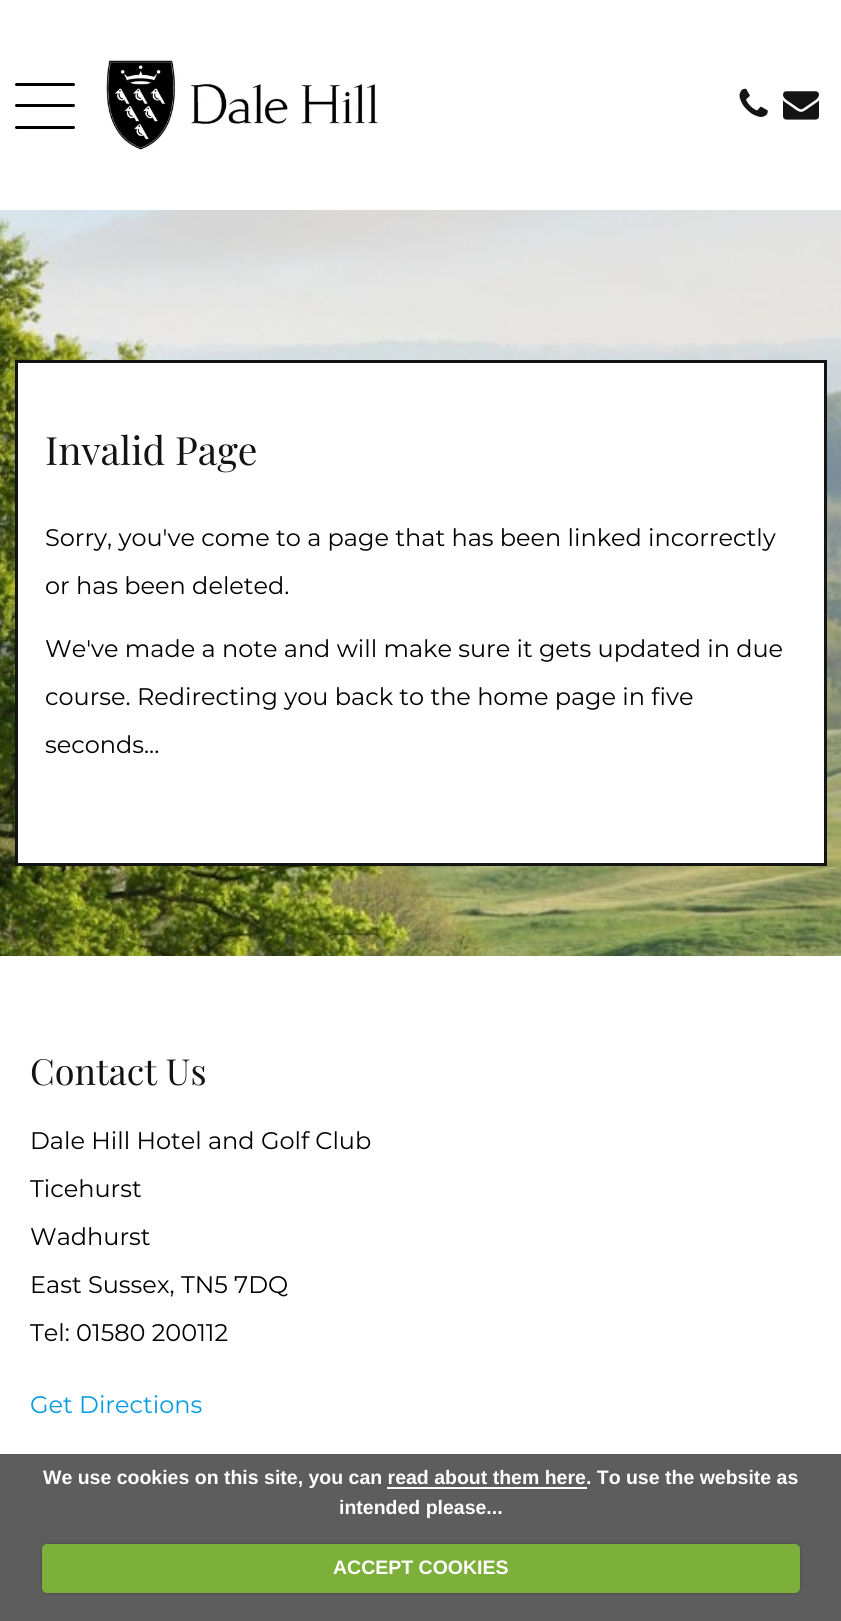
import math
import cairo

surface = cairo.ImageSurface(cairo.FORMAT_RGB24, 841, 1621)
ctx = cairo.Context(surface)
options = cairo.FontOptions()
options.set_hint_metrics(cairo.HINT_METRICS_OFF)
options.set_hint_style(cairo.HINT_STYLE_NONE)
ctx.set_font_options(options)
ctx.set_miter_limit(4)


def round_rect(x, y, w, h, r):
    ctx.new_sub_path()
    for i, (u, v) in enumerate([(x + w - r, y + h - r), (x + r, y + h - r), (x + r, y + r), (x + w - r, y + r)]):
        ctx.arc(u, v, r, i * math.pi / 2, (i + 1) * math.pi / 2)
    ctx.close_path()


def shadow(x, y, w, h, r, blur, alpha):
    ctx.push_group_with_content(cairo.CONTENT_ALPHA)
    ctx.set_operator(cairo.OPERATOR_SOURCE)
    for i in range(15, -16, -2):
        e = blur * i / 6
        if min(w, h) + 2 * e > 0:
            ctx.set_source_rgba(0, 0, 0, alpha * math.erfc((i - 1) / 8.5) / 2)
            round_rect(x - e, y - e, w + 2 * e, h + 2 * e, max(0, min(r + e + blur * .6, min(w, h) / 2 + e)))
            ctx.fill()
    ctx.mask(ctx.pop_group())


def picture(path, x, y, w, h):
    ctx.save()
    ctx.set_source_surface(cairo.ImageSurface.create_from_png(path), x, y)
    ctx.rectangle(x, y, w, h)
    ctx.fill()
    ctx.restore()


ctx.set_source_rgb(1, 1, 1)
ctx.paint()
picture("img1.png", 0, 210, 841, 746)
ctx.set_source_rgb(0, 0, 0)
round_rect(15, 83, 60, 3, 1.5)
ctx.fill()
round_rect(15, 104, 60, 3, 1.5)
ctx.fill()
round_rect(15, 126, 60, 3, 1.5)
ctx.fill()
picture("img2.png", 105, 60, 273, 90)
picture("img3.png", 739, 88, 29, 29)
picture("img4.png", 783, 91, 36, 29)
ctx.set_source_rgb(1, 1, 1)
ctx.rectangle(16.5, 361.5, 809, 503)
ctx.fill_preserve()
ctx.set_source_rgb(0.078, 0.078, 0.078)
ctx.set_line_width(3)
ctx.stroke()
ctx.select_font_face("Playfair Display")
ctx.set_font_size(39)
ctx.move_to(45, 465)
ctx.show_text("Invalid Page")
ctx.select_font_face("Montserrat")
ctx.set_font_size(24)
ctx.set_source_rgb(0, 0, 0)
ctx.move_to(45, 546)
ctx.show_text("Sorry, you've come to a page that has been linked incorrectly")
ctx.move_to(45, 594)
ctx.show_text("or has been deleted.")
ctx.move_to(45, 657)
ctx.show_text("We've made a note and will make sure it gets updated in due")
ctx.move_to(45, 705)
ctx.show_text("course. Redirecting you back to the home page in five")
ctx.move_to(45, 753)
ctx.show_text("seconds...")
ctx.select_font_face("Playfair Display")
ctx.set_font_size(36)
ctx.set_source_rgb(0.078, 0.078, 0.078)
ctx.move_to(30, 1085)
ctx.show_text("Contact Us")
ctx.select_font_face("Montserrat")
ctx.set_font_size(24)
ctx.set_source_rgb(0, 0, 0)
ctx.move_to(30, 1149)
ctx.show_text("Dale Hill Hotel and Golf Club")
ctx.move_to(30, 1197)
ctx.show_text("Ticehurst")
ctx.move_to(30, 1245)
ctx.show_text("Wadhurst")
ctx.move_to(30, 1293)
ctx.show_text("East Sussex, TN5 7DQ")
ctx.move_to(30, 1341)
ctx.show_text("Tel: 01580 200112")
ctx.set_source_rgb(0.012, 0.608, 0.898)
ctx.move_to(30, 1413)
ctx.show_text("Get Directions")
ctx.set_source_rgba(0.337, 0.337, 0.337, 0.95)
ctx.rectangle(0, 1454, 841, 167)
ctx.fill()
ctx.select_font_face("Liberation Sans", cairo.FONT_SLANT_NORMAL, cairo.FONT_WEIGHT_BOLD)
ctx.set_font_size(19.5)
ctx.set_source_rgb(1, 1, 1)
ctx.move_to(43, 1484)
ctx.show_text("We use cookies on this site, you can read about them here. To use the website as")
ctx.rectangle(387, 1487, 200, 2)
ctx.fill()
ctx.move_to(339, 1514)
ctx.show_text("intended please...")
ctx.set_source_rgb(0, 0, 0)
shadow(42, 1544, 758, 49, 5, 1.5, 0.25)
ctx.set_source_rgb(0.49, 0.686, 0.231)
round_rect(42, 1544, 758, 49, 5)
ctx.fill()
ctx.set_source_rgb(1, 1, 1)
ctx.move_to(333, 1574)
ctx.show_text("ACCEPT COOKIES")
surface.write_to_png("page.png")
